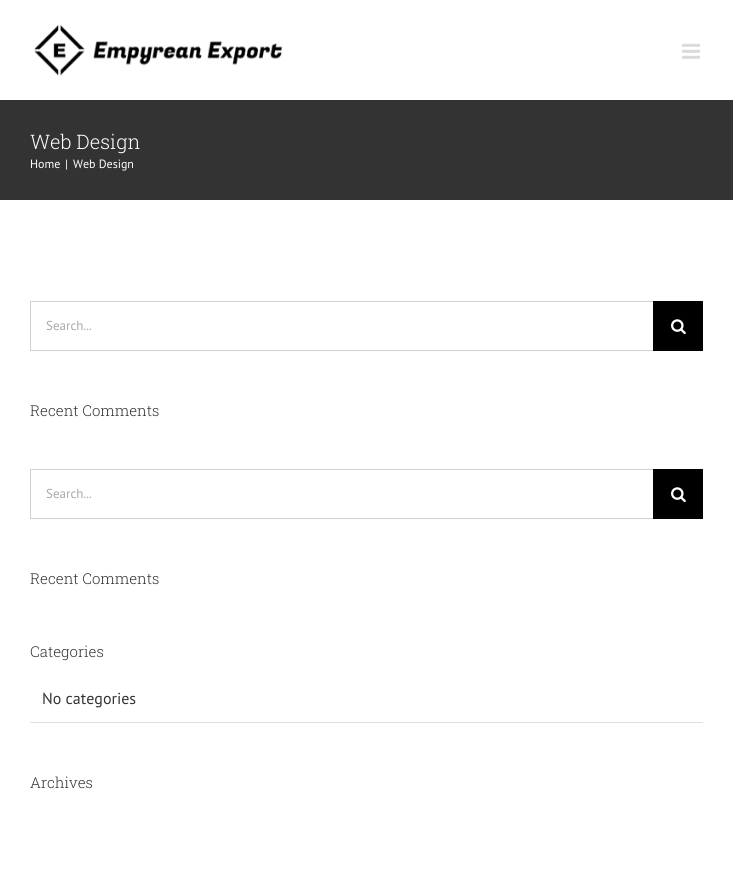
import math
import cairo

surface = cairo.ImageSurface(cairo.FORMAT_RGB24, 733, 880)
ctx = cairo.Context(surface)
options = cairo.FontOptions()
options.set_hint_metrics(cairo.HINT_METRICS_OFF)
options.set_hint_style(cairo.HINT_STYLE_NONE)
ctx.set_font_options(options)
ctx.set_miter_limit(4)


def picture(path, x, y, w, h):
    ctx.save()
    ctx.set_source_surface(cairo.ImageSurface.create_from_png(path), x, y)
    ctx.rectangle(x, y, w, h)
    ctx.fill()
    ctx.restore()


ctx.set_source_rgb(1, 1, 1)
ctx.paint()
picture("img1.png", 34, 25, 249, 51)
picture("img2.png", 682, 43, 18, 16)
ctx.set_source_rgb(0.2, 0.2, 0.2)
ctx.rectangle(0, 100, 733, 100)
ctx.fill()
ctx.select_font_face("Roboto Slab Light")
ctx.set_font_size(20)
ctx.set_source_rgb(1, 1, 1)
ctx.move_to(30, 149)
ctx.show_text("Web Design")
ctx.select_font_face("PT Sans")
ctx.set_font_size(12)
ctx.move_to(30, 168)
ctx.show_text("Home")
ctx.move_to(65, 168)
ctx.show_text("|")
ctx.move_to(73, 168)
ctx.show_text("Web Design")
ctx.set_source_rgb(0.824, 0.824, 0.824)
ctx.rectangle(30, 301, 623, 1)
ctx.fill()
ctx.rectangle(30, 350, 623, 1)
ctx.fill()
ctx.rectangle(30, 301, 1, 50)
ctx.fill()
ctx.set_font_size(13)
ctx.set_source_rgb(0.667, 0.663, 0.663)
ctx.move_to(46, 330)
ctx.show_text("Search...")
ctx.set_source_rgb(0, 0, 0)
ctx.rectangle(653, 301, 50, 50)
ctx.fill()
picture("img3.png", 671, 319, 15, 16)
ctx.select_font_face("Roboto Slab Light")
ctx.set_font_size(15)
ctx.set_source_rgb(0.2, 0.2, 0.2)
ctx.move_to(30, 416)
ctx.show_text("Recent Comments")
ctx.set_source_rgb(0.824, 0.824, 0.824)
ctx.rectangle(30, 469, 623, 1)
ctx.fill()
ctx.rectangle(30, 518, 623, 1)
ctx.fill()
ctx.rectangle(30, 469, 1, 50)
ctx.fill()
ctx.select_font_face("PT Sans")
ctx.set_font_size(13)
ctx.set_source_rgb(0.667, 0.663, 0.663)
ctx.move_to(46, 498)
ctx.show_text("Search...")
ctx.set_source_rgb(0, 0, 0)
ctx.rectangle(653, 469, 50, 50)
ctx.fill()
picture("img3.png", 671, 487, 15, 16)
ctx.select_font_face("Roboto Slab Light")
ctx.set_font_size(15)
ctx.set_source_rgb(0.2, 0.2, 0.2)
ctx.move_to(30, 584)
ctx.show_text("Recent Comments")
ctx.move_to(30, 657)
ctx.show_text("Categories")
ctx.set_source_rgb(0.878, 0.871, 0.871)
ctx.rectangle(30, 722, 673, 1)
ctx.fill()
ctx.select_font_face("PT Sans")
ctx.set_font_size(16)
ctx.set_source_rgb(0.2, 0.2, 0.2)
ctx.move_to(42, 704)
ctx.show_text("No categories")
ctx.select_font_face("Roboto Slab Light")
ctx.set_font_size(15)
ctx.move_to(30, 788)
ctx.show_text("Archives")
surface.write_to_png("page.png")
